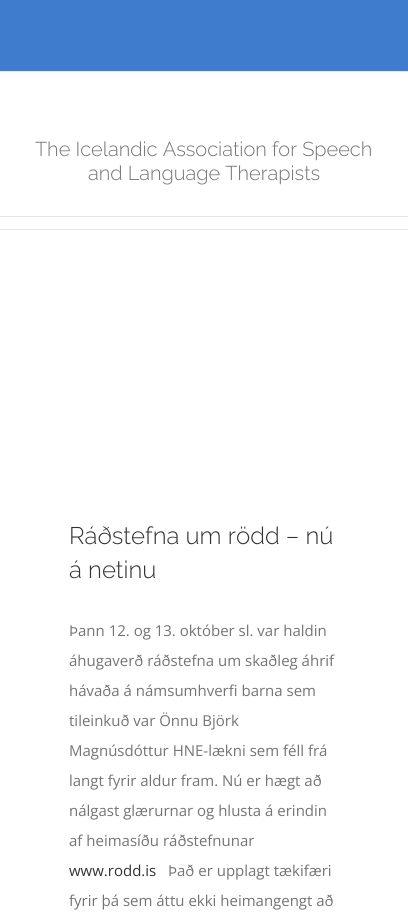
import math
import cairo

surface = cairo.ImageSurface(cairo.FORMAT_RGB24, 408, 917)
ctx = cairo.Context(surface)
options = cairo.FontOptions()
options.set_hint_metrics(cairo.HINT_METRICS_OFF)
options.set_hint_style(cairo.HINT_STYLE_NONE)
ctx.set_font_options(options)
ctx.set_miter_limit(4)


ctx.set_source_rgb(1, 1, 1)
ctx.paint()
ctx.set_source_rgb(0.247, 0.486, 0.804)
ctx.rectangle(0, 0, 408, 71)
ctx.fill()
ctx.set_source_rgb(0.898, 0.898, 0.898)
ctx.rectangle(0, 71, 408, 1)
ctx.fill()
ctx.rectangle(0, 216, 408, 1)
ctx.fill()
ctx.select_font_face("Raleway Light")
ctx.set_font_size(20)
ctx.set_source_rgb(0.455, 0.455, 0.455)
ctx.move_to(35, 156)
ctx.show_text("The Icelandic Association for Speech")
ctx.move_to(88, 180)
ctx.show_text("and Language Therapists")
ctx.set_source_rgb(0.898, 0.898, 0.898)
ctx.rectangle(0, 229, 408, 1)
ctx.fill()
ctx.set_font_size(24)
ctx.set_source_rgb(0.2, 0.2, 0.2)
ctx.move_to(69, 544)
ctx.show_text("Ráðstefna um rödd – nú")
ctx.move_to(69, 578)
ctx.show_text("á netinu")
ctx.select_font_face("Open Sans")
ctx.set_font_size(15)
ctx.set_source_rgb(0.455, 0.455, 0.455)
ctx.move_to(69, 636)
ctx.show_text("Þann 12. og 13. október sl. var haldin")
ctx.move_to(69, 666)
ctx.show_text("áhugaverð ráðstefna um skaðleg áhrif")
ctx.move_to(69, 696)
ctx.show_text("hávaða á námsumhverfi barna sem")
ctx.move_to(69, 726)
ctx.show_text("tileinkuð var Önnu Björk")
ctx.move_to(69, 756)
ctx.show_text("Magnúsdóttur HNE-lækni sem féll frá")
ctx.move_to(69, 786)
ctx.show_text("langt fyrir aldur fram. Nú er hægt að")
ctx.move_to(69, 816)
ctx.show_text("nálgast glærurnar og hlusta á erindin")
ctx.move_to(69, 846)
ctx.show_text("af heimasíðu ráðstefnunar")
ctx.set_source_rgb(0.2, 0.2, 0.2)
ctx.move_to(69, 876)
ctx.show_text("www.rodd.is")
ctx.set_source_rgb(0.455, 0.455, 0.455)
ctx.move_to(168, 876)
ctx.show_text("Það er upplagt tækifæri")
ctx.move_to(69, 906)
ctx.show_text("fyrir þá sem áttu ekki heimangengt að")
surface.write_to_png("page.png")
